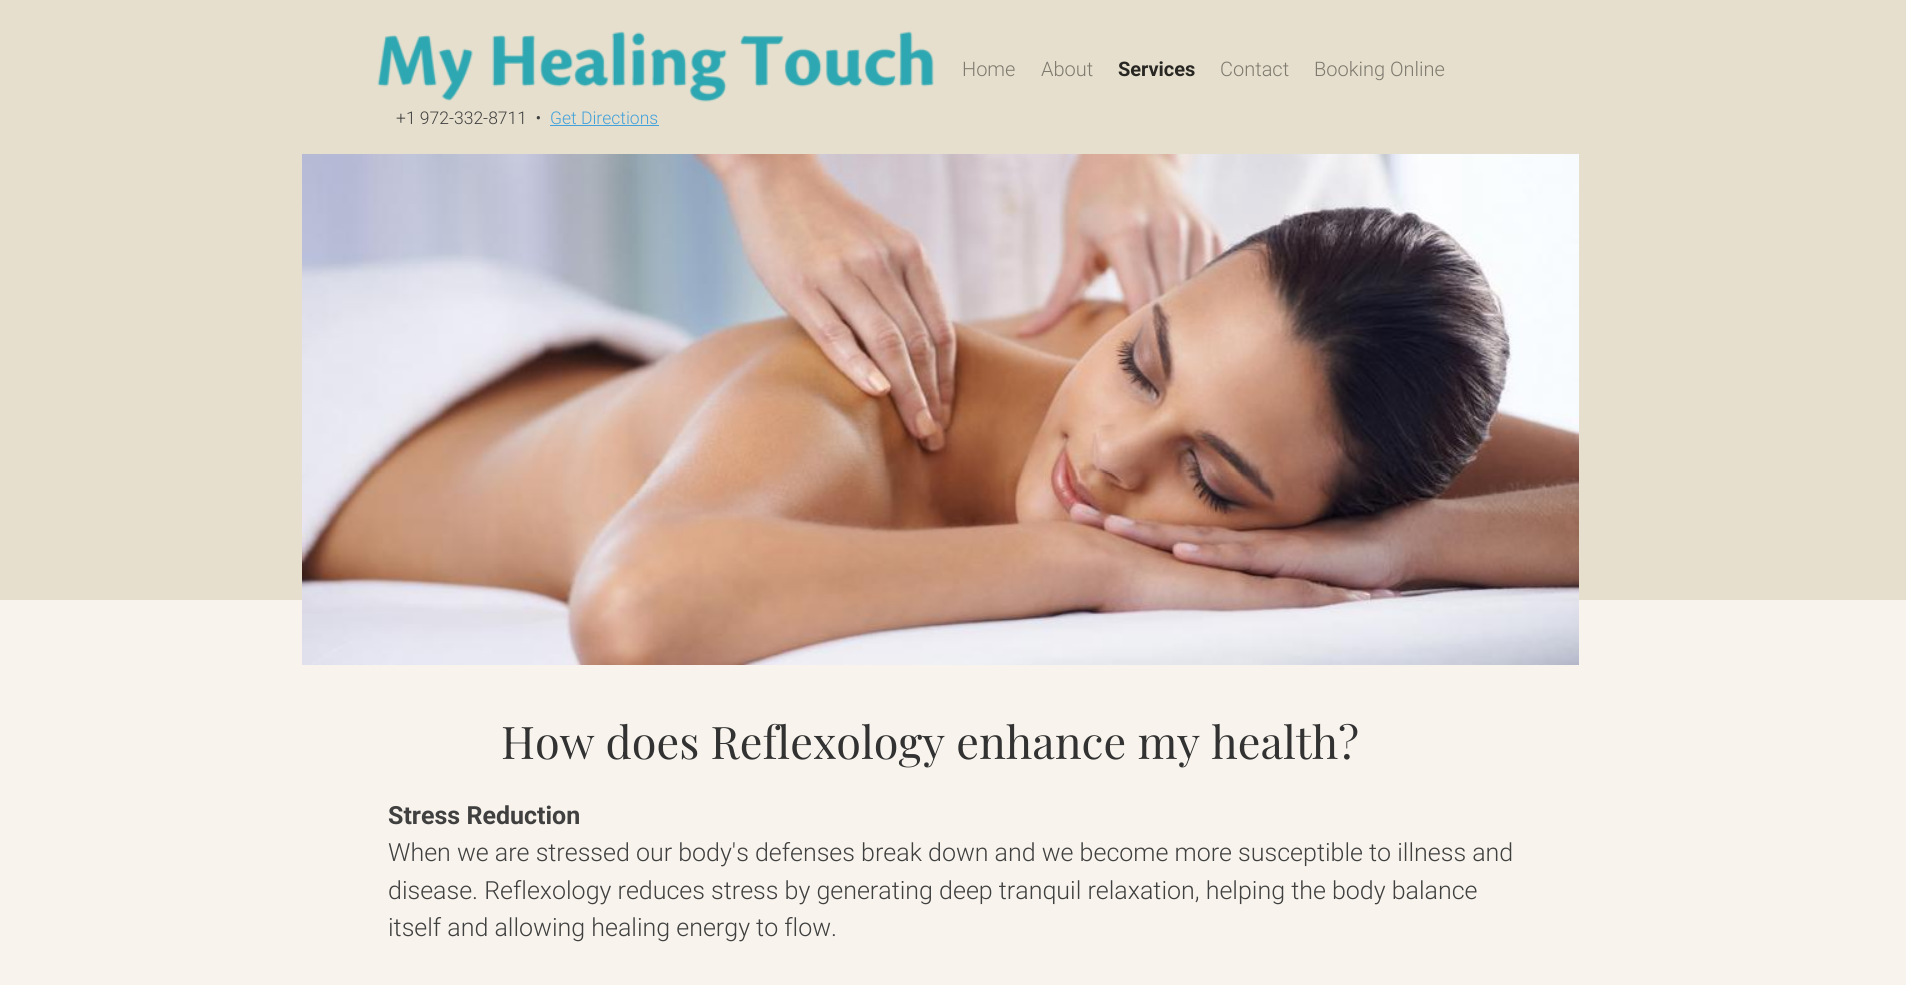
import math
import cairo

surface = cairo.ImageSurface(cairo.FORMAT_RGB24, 1906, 985)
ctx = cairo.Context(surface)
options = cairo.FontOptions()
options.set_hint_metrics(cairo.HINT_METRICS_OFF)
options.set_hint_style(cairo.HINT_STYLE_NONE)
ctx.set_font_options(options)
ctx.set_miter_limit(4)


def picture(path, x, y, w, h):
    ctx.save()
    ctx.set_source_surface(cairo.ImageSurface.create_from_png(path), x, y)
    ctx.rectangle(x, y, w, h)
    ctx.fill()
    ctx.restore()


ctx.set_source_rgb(0.969, 0.957, 0.929)
ctx.paint()
ctx.set_source_rgb(0.902, 0.875, 0.804)
ctx.rectangle(0, 0, 1906, 600)
ctx.fill()
picture("img1.png", 377, 31, 557, 71)
ctx.select_font_face("Roboto Light")
ctx.set_font_size(20)
ctx.set_source_rgb(0.494, 0.478, 0.435)
ctx.move_to(962, 76)
ctx.show_text("Home")
ctx.move_to(1041, 76)
ctx.show_text("About")
ctx.select_font_face("Roboto", cairo.FONT_SLANT_NORMAL, cairo.FONT_WEIGHT_BOLD)
ctx.set_source_rgb(0.161, 0.153, 0.137)
ctx.move_to(1118, 76)
ctx.show_text("Services")
ctx.select_font_face("Roboto Light")
ctx.set_source_rgb(0.494, 0.478, 0.435)
ctx.move_to(1220, 76)
ctx.show_text("Contact")
ctx.move_to(1314, 76)
ctx.show_text("Booking Online")
ctx.set_font_size(17.5)
ctx.set_source_rgb(0.251, 0.251, 0.251)
ctx.move_to(396, 124)
ctx.show_text("+1 972-332-8711  •")
ctx.set_source_rgb(0.263, 0.631, 0.855)
ctx.move_to(550, 124)
ctx.show_text("Get Directions")
ctx.rectangle(550, 125, 109, 1)
ctx.fill()
picture("img2.png", 302, 154, 1277, 511)
ctx.select_font_face("Playfair Display")
ctx.set_font_size(45)
ctx.set_source_rgb(0.196, 0.196, 0.196)
ctx.move_to(501, 759)
ctx.show_text("How does Reflexology enhance my health?")
ctx.select_font_face("Roboto", cairo.FONT_SLANT_NORMAL, cairo.FONT_WEIGHT_BOLD)
ctx.set_font_size(25)
ctx.set_source_rgb(0.251, 0.251, 0.251)
ctx.move_to(388, 824)
ctx.show_text("Stress Reduction")
ctx.select_font_face("Roboto Light")
ctx.move_to(388, 861)
ctx.show_text("When we are stressed our body's defenses break down and we become more susceptible to illness and")
ctx.move_to(388, 899)
ctx.show_text("disease. Reflexology reduces stress by generating deep tranquil relaxation, helping the body balance")
ctx.move_to(388, 936)
ctx.show_text("itself and allowing healing energy to flow.")
surface.write_to_png("page.png")
